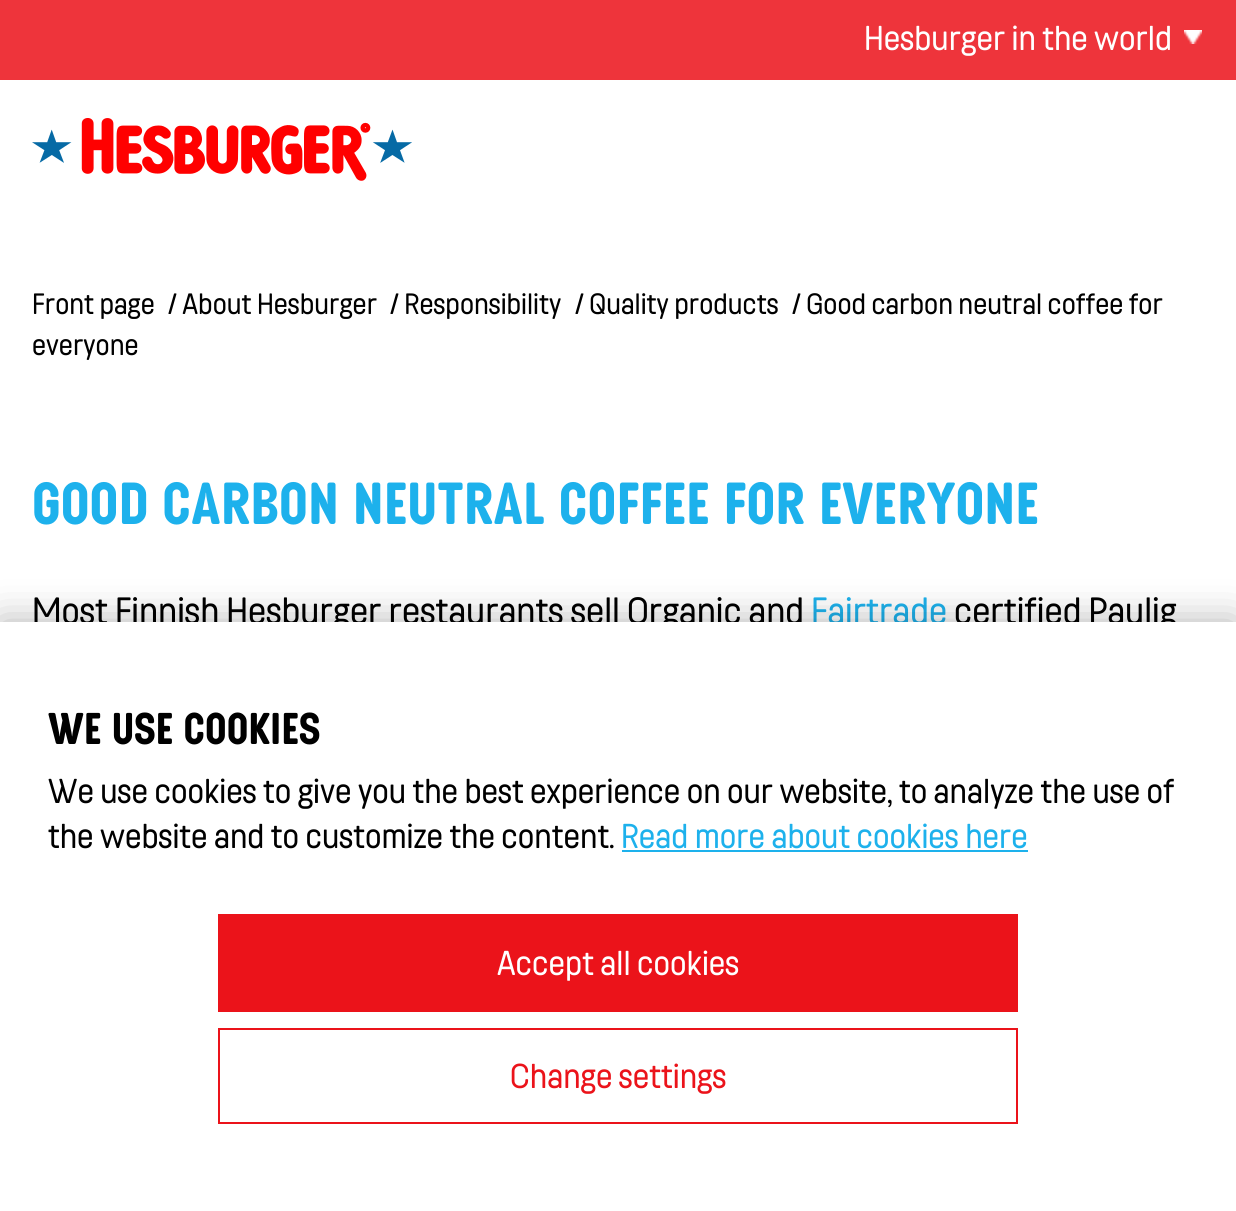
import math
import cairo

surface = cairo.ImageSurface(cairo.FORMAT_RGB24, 1236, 1211)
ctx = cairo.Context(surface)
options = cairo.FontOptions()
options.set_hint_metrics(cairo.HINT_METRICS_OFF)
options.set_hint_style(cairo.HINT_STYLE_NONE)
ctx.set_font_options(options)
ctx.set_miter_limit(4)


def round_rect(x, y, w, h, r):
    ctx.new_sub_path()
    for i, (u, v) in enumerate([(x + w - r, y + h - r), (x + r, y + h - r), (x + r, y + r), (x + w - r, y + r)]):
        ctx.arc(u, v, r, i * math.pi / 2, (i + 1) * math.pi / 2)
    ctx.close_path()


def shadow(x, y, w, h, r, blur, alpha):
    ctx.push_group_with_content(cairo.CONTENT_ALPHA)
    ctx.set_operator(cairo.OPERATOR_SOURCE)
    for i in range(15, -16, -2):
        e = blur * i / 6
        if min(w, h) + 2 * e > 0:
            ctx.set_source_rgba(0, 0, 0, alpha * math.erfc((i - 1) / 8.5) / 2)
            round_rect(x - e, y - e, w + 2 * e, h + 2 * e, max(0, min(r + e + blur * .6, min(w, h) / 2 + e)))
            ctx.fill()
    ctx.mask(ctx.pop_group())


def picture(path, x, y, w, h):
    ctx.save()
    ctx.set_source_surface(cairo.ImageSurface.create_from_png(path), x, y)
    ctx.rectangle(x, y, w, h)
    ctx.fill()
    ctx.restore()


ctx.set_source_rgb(1, 1, 1)
ctx.paint()
ctx.set_source_rgb(0.933, 0.204, 0.231)
ctx.rectangle(0, 0, 1236, 80)
ctx.fill()
ctx.select_font_face("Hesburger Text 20")
ctx.set_font_size(32)
ctx.set_source_rgb(1, 1, 1)
ctx.move_to(864, 50)
ctx.show_text("Hesburger in the world")
picture("img1.png", 1184, 30, 18, 14)
picture("img2.png", 32, 118, 380, 63)
ctx.set_font_size(27.25)
ctx.set_source_rgb(0, 0, 0)
ctx.move_to(32, 314)
ctx.show_text("Front page")
ctx.move_to(168, 314)
ctx.show_text("/ About Hesburger")
ctx.move_to(390, 314)
ctx.show_text("/ Responsibility")
ctx.move_to(575, 314)
ctx.show_text("/ Quality products")
ctx.move_to(792, 314)
ctx.show_text("/ Good carbon neutral coffee for")
ctx.move_to(32, 355)
ctx.show_text("everyone")
ctx.select_font_face("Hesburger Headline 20 Black")
ctx.set_font_size(64)
ctx.set_source_rgb(0.114, 0.694, 0.925)
ctx.move_to(32, 524)
ctx.show_text("GOOD CARBON NEUTRAL COFFEE FOR EVERYONE")
ctx.select_font_face("Hesburger Text 20")
ctx.set_font_size(35.2)
ctx.set_source_rgb(0, 0, 0)
ctx.move_to(32, 624)
ctx.show_text("Most Finnish Hesburger restaurants sell Organic and")
ctx.set_source_rgb(0.114, 0.694, 0.925)
ctx.move_to(811, 624)
ctx.show_text("Fairtrade")
ctx.set_source_rgb(0, 0, 0)
ctx.move_to(954, 624)
ctx.show_text("certified Paulig")
ctx.set_source_rgb(0, 0, 0)
shadow(0, 622, 1236, 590, 0, 20, 0.3)
ctx.set_source_rgb(1, 1, 1)
ctx.rectangle(0, 622, 1236, 589)
ctx.fill()
ctx.select_font_face("Hesburger Headline 20 Black")
ctx.set_font_size(48)
ctx.set_source_rgb(0, 0, 0)
ctx.move_to(48, 744)
ctx.show_text("WE USE COOKIES")
ctx.select_font_face("Hesburger Text 20")
ctx.set_font_size(32)
ctx.move_to(48, 803)
ctx.show_text("We use cookies to give you the best experience on our website, to analyze the use of")
ctx.move_to(48, 848)
ctx.show_text("the website and to customize the content.")
ctx.set_source_rgb(0.114, 0.694, 0.925)
ctx.move_to(621, 848)
ctx.show_text("Read more about cookies here")
ctx.rectangle(622, 850, 406, 2)
ctx.fill()
ctx.set_source_rgb(0.918, 0.075, 0.102)
ctx.rectangle(218, 914, 800, 98)
ctx.fill()
ctx.set_source_rgb(1, 1, 1)
ctx.move_to(497, 975)
ctx.show_text("Accept all cookies")
ctx.rectangle(219, 1029, 798, 94)
ctx.set_source_rgb(0.918, 0.075, 0.102)
ctx.stroke()
ctx.move_to(510, 1088)
ctx.show_text("Change settings")
surface.write_to_png("page.png")
